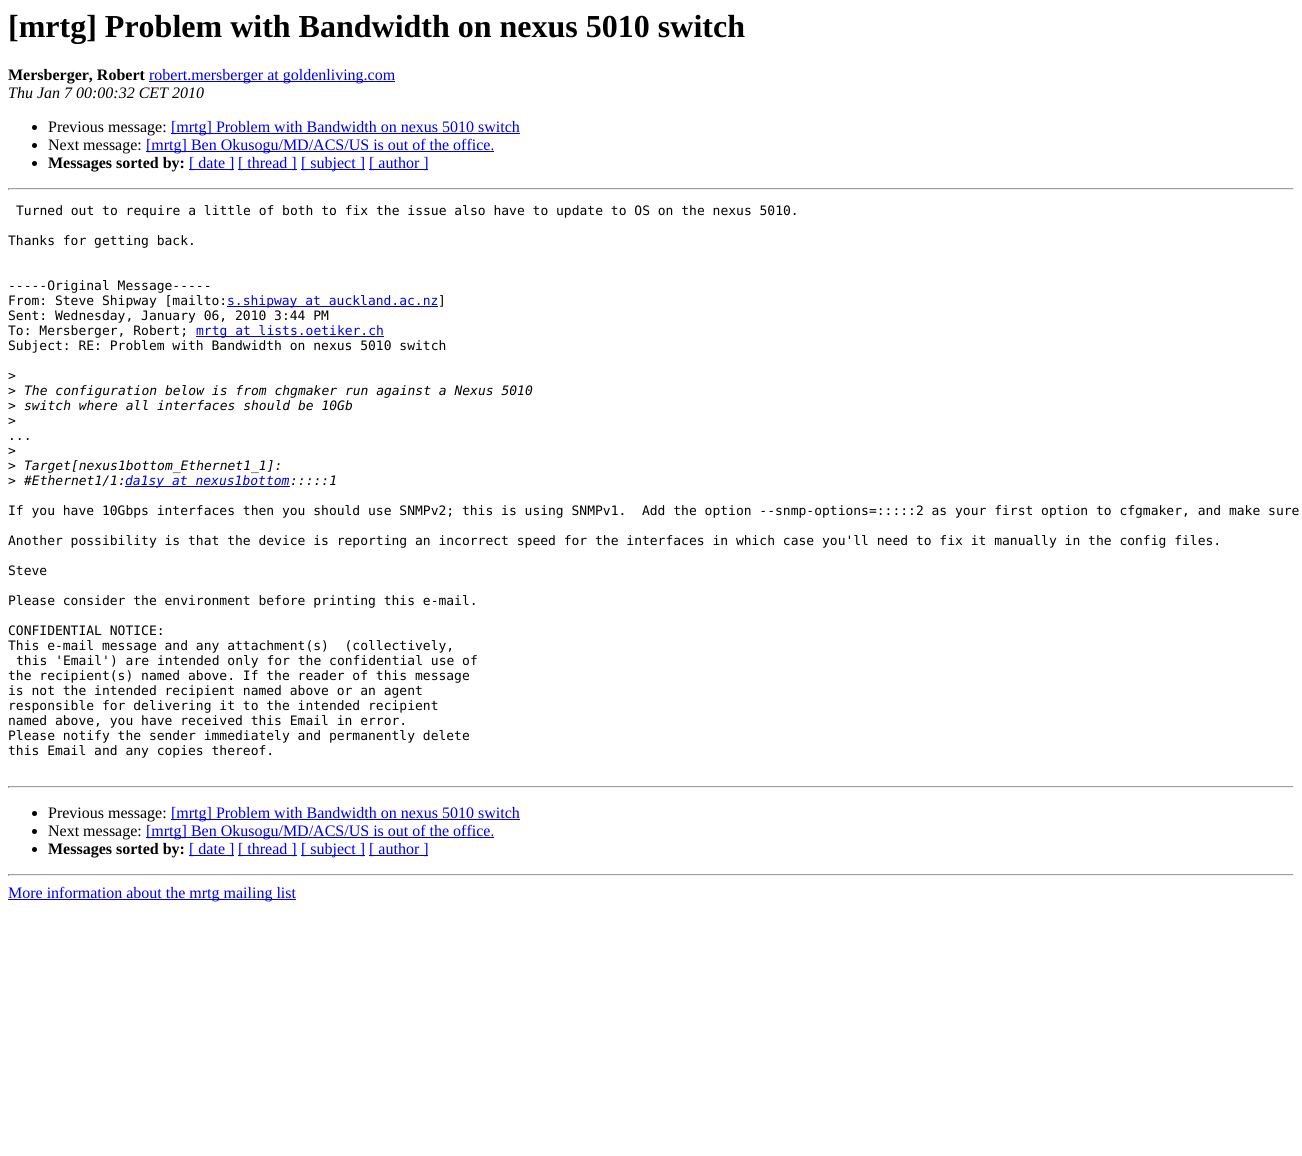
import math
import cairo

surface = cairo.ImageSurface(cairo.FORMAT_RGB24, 1302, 1156)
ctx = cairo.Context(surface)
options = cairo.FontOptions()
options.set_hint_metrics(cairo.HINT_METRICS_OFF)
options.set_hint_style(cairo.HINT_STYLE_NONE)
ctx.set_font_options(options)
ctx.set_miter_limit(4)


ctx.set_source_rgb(1, 1, 1)
ctx.paint()
ctx.select_font_face("Liberation Serif", cairo.FONT_SLANT_NORMAL, cairo.FONT_WEIGHT_BOLD)
ctx.set_font_size(32)
ctx.set_source_rgb(0, 0, 0)
ctx.move_to(8, 37)
ctx.show_text("[mrtg] Problem with Bandwidth on nexus 5010 switch")
ctx.set_font_size(16)
ctx.move_to(8, 80)
ctx.show_text("Mersberger, Robert")
ctx.set_source_rgb(0, 0, 0.933)
ctx.rectangle(149, 81, 246, 1)
ctx.fill()
ctx.select_font_face("Liberation Serif")
ctx.move_to(149, 80)
ctx.show_text("robert.mersberger at goldenliving.com")
ctx.select_font_face("Liberation Serif", cairo.FONT_SLANT_ITALIC)
ctx.set_source_rgb(0, 0, 0)
ctx.move_to(8, 98)
ctx.show_text("Thu Jan 7 00:00:32 CET 2010")
ctx.new_path()
ctx.arc(34.5, 127.5, 2.5, 0, 2 * math.pi)
ctx.fill()
ctx.select_font_face("Liberation Serif")
ctx.move_to(48, 132)
ctx.show_text("Previous message:")
ctx.set_source_rgb(0, 0, 0.933)
ctx.rectangle(171, 133, 349, 1)
ctx.fill()
ctx.move_to(171, 132)
ctx.show_text("[mrtg] Problem with Bandwidth on nexus 5010 switch")
ctx.set_source_rgb(0, 0, 0)
ctx.new_path()
ctx.arc(34.5, 145.5, 2.5, 0, 2 * math.pi)
ctx.fill()
ctx.move_to(48, 150)
ctx.show_text("Next message:")
ctx.set_source_rgb(0, 0, 0.933)
ctx.rectangle(146, 151, 348, 1)
ctx.fill()
ctx.move_to(146, 150)
ctx.show_text("[mrtg] Ben Okusogu/MD/ACS/US is out of the office.")
ctx.set_source_rgb(0, 0, 0)
ctx.new_path()
ctx.arc(34.5, 163.5, 2.5, 0, 2 * math.pi)
ctx.fill()
ctx.select_font_face("Liberation Serif", cairo.FONT_SLANT_NORMAL, cairo.FONT_WEIGHT_BOLD)
ctx.move_to(48, 168)
ctx.show_text("Messages sorted by:")
ctx.set_source_rgb(0, 0, 0.933)
ctx.rectangle(189, 169, 45, 1)
ctx.fill()
ctx.select_font_face("Liberation Serif")
ctx.move_to(189, 168)
ctx.show_text("[ date ]")
ctx.rectangle(238, 169, 59, 1)
ctx.fill()
ctx.move_to(238, 168)
ctx.show_text("[ thread ]")
ctx.rectangle(301, 169, 64, 1)
ctx.fill()
ctx.move_to(301, 168)
ctx.show_text("[ subject ]")
ctx.rectangle(369, 169, 59, 1)
ctx.fill()
ctx.move_to(369, 168)
ctx.show_text("[ author ]")
ctx.set_source_rgb(0.624, 0.624, 0.624)
ctx.rectangle(8, 188, 1286, 1)
ctx.fill()
ctx.set_source_rgb(0.933, 0.933, 0.933)
ctx.rectangle(1293, 188, 1, 2)
ctx.fill()
ctx.rectangle(8, 189, 1286, 1)
ctx.fill()
ctx.set_source_rgb(0.624, 0.624, 0.624)
ctx.rectangle(8, 188, 1, 2)
ctx.fill()
ctx.select_font_face("DejaVu Sans Mono")
ctx.set_font_size(13)
ctx.set_source_rgb(0, 0, 0)
ctx.move_to(16, 215)
ctx.show_text("Turned out to require a little of both to fix the issue also have to update to OS on the nexus 5010.")
ctx.move_to(8, 245)
ctx.show_text("Thanks for getting back.")
ctx.move_to(8, 290)
ctx.show_text("-----Original Message-----")
ctx.move_to(8, 305)
ctx.show_text("From: Steve Shipway [mailto:")
ctx.set_source_rgb(0, 0, 0.933)
ctx.rectangle(227, 306, 211, 1)
ctx.fill()
ctx.move_to(227, 305)
ctx.show_text("s.shipway at auckland.ac.nz")
ctx.set_source_rgb(0, 0, 0)
ctx.move_to(438, 305)
ctx.show_text("]")
ctx.move_to(8, 320)
ctx.show_text("Sent: Wednesday, January 06, 2010 3:44 PM")
ctx.move_to(8, 335)
ctx.show_text("To: Mersberger, Robert;")
ctx.set_source_rgb(0, 0, 0.933)
ctx.rectangle(196, 336, 188, 1)
ctx.fill()
ctx.move_to(196, 335)
ctx.show_text("mrtg at lists.oetiker.ch")
ctx.set_source_rgb(0, 0, 0)
ctx.move_to(8, 350)
ctx.show_text("Subject: RE: Problem with Bandwidth on nexus 5010 switch")
ctx.move_to(8, 380)
ctx.show_text(">")
ctx.move_to(8, 395)
ctx.show_text(">")
ctx.select_font_face("DejaVu Sans Mono", cairo.FONT_SLANT_ITALIC)
ctx.move_to(24, 395)
ctx.show_text("The configuration below is from chgmaker run against a Nexus 5010")
ctx.select_font_face("DejaVu Sans Mono")
ctx.move_to(8, 410)
ctx.show_text(">")
ctx.select_font_face("DejaVu Sans Mono", cairo.FONT_SLANT_ITALIC)
ctx.move_to(24, 410)
ctx.show_text("switch where all interfaces should be 10Gb")
ctx.select_font_face("DejaVu Sans Mono")
ctx.move_to(8, 425)
ctx.show_text(">")
ctx.move_to(8, 440)
ctx.show_text("...")
ctx.move_to(8, 455)
ctx.show_text(">")
ctx.move_to(8, 470)
ctx.show_text(">")
ctx.select_font_face("DejaVu Sans Mono", cairo.FONT_SLANT_ITALIC)
ctx.move_to(24, 470)
ctx.show_text("Target[nexus1bottom_Ethernet1_1]:")
ctx.select_font_face("DejaVu Sans Mono")
ctx.move_to(8, 485)
ctx.show_text(">")
ctx.select_font_face("DejaVu Sans Mono", cairo.FONT_SLANT_ITALIC)
ctx.move_to(24, 485)
ctx.show_text("#Ethernet1/1:")
ctx.set_source_rgb(0, 0, 0.933)
ctx.rectangle(125, 486, 165, 1)
ctx.fill()
ctx.move_to(125, 485)
ctx.show_text("da1sy at nexus1bottom")
ctx.set_source_rgb(0, 0, 0)
ctx.move_to(290, 485)
ctx.show_text(":::::1")
ctx.select_font_face("DejaVu Sans Mono")
ctx.move_to(8, 515)
ctx.show_text("If you have 10Gbps interfaces then you should use SNMPv2; this is using SNMPv1.  Add the option --snmp-options=:::::2 as your first option to cfgmaker, and make sure")
ctx.move_to(8, 545)
ctx.show_text("Another possibility is that the device is reporting an incorrect speed for the interfaces in which case you'll need to fix it manually in the config files.")
ctx.move_to(8, 575)
ctx.show_text("Steve")
ctx.move_to(8, 605)
ctx.show_text("Please consider the environment before printing this e-mail.")
ctx.move_to(8, 635)
ctx.show_text("CONFIDENTIAL NOTICE:")
ctx.move_to(8, 650)
ctx.show_text("This e-mail message and any attachment(s)  (collectively,")
ctx.move_to(16, 665)
ctx.show_text("this 'Email') are intended only for the confidential use of")
ctx.move_to(8, 680)
ctx.show_text("the recipient(s) named above. If the reader of this message")
ctx.move_to(8, 695)
ctx.show_text("is not the intended recipient named above or an agent")
ctx.move_to(8, 710)
ctx.show_text("responsible for delivering it to the intended recipient")
ctx.move_to(8, 725)
ctx.show_text("named above, you have received this Email in error.")
ctx.move_to(8, 740)
ctx.show_text("Please notify the sender immediately and permanently delete")
ctx.move_to(8, 755)
ctx.show_text("this Email and any copies thereof.")
ctx.set_source_rgb(0.624, 0.624, 0.624)
ctx.rectangle(8, 786, 1286, 1)
ctx.fill()
ctx.set_source_rgb(0.933, 0.933, 0.933)
ctx.rectangle(1293, 786, 1, 2)
ctx.fill()
ctx.rectangle(8, 787, 1286, 1)
ctx.fill()
ctx.set_source_rgb(0.624, 0.624, 0.624)
ctx.rectangle(8, 786, 1, 2)
ctx.fill()
ctx.set_source_rgb(0, 0, 0)
ctx.arc(34.5, 813.5, 2.5, 0, 2 * math.pi)
ctx.fill()
ctx.select_font_face("Liberation Serif")
ctx.set_font_size(16)
ctx.move_to(48, 818)
ctx.show_text("Previous message:")
ctx.set_source_rgb(0, 0, 0.933)
ctx.rectangle(171, 819, 349, 1)
ctx.fill()
ctx.move_to(171, 818)
ctx.show_text("[mrtg] Problem with Bandwidth on nexus 5010 switch")
ctx.set_source_rgb(0, 0, 0)
ctx.new_path()
ctx.arc(34.5, 831.5, 2.5, 0, 2 * math.pi)
ctx.fill()
ctx.move_to(48, 836)
ctx.show_text("Next message:")
ctx.set_source_rgb(0, 0, 0.933)
ctx.rectangle(146, 837, 348, 1)
ctx.fill()
ctx.move_to(146, 836)
ctx.show_text("[mrtg] Ben Okusogu/MD/ACS/US is out of the office.")
ctx.set_source_rgb(0, 0, 0)
ctx.new_path()
ctx.arc(34.5, 849.5, 2.5, 0, 2 * math.pi)
ctx.fill()
ctx.select_font_face("Liberation Serif", cairo.FONT_SLANT_NORMAL, cairo.FONT_WEIGHT_BOLD)
ctx.move_to(48, 854)
ctx.show_text("Messages sorted by:")
ctx.set_source_rgb(0, 0, 0.933)
ctx.rectangle(189, 855, 45, 1)
ctx.fill()
ctx.select_font_face("Liberation Serif")
ctx.move_to(189, 854)
ctx.show_text("[ date ]")
ctx.rectangle(238, 855, 59, 1)
ctx.fill()
ctx.move_to(238, 854)
ctx.show_text("[ thread ]")
ctx.rectangle(301, 855, 64, 1)
ctx.fill()
ctx.move_to(301, 854)
ctx.show_text("[ subject ]")
ctx.rectangle(369, 855, 59, 1)
ctx.fill()
ctx.move_to(369, 854)
ctx.show_text("[ author ]")
ctx.set_source_rgb(0.624, 0.624, 0.624)
ctx.rectangle(8, 874, 1286, 1)
ctx.fill()
ctx.set_source_rgb(0.933, 0.933, 0.933)
ctx.rectangle(1293, 874, 1, 2)
ctx.fill()
ctx.rectangle(8, 875, 1286, 1)
ctx.fill()
ctx.set_source_rgb(0.624, 0.624, 0.624)
ctx.rectangle(8, 874, 1, 2)
ctx.fill()
ctx.set_source_rgb(0, 0, 0.933)
ctx.rectangle(8, 899, 288, 1)
ctx.fill()
ctx.move_to(8, 898)
ctx.show_text("More information about the mrtg mailing list")
surface.write_to_png("page.png")
